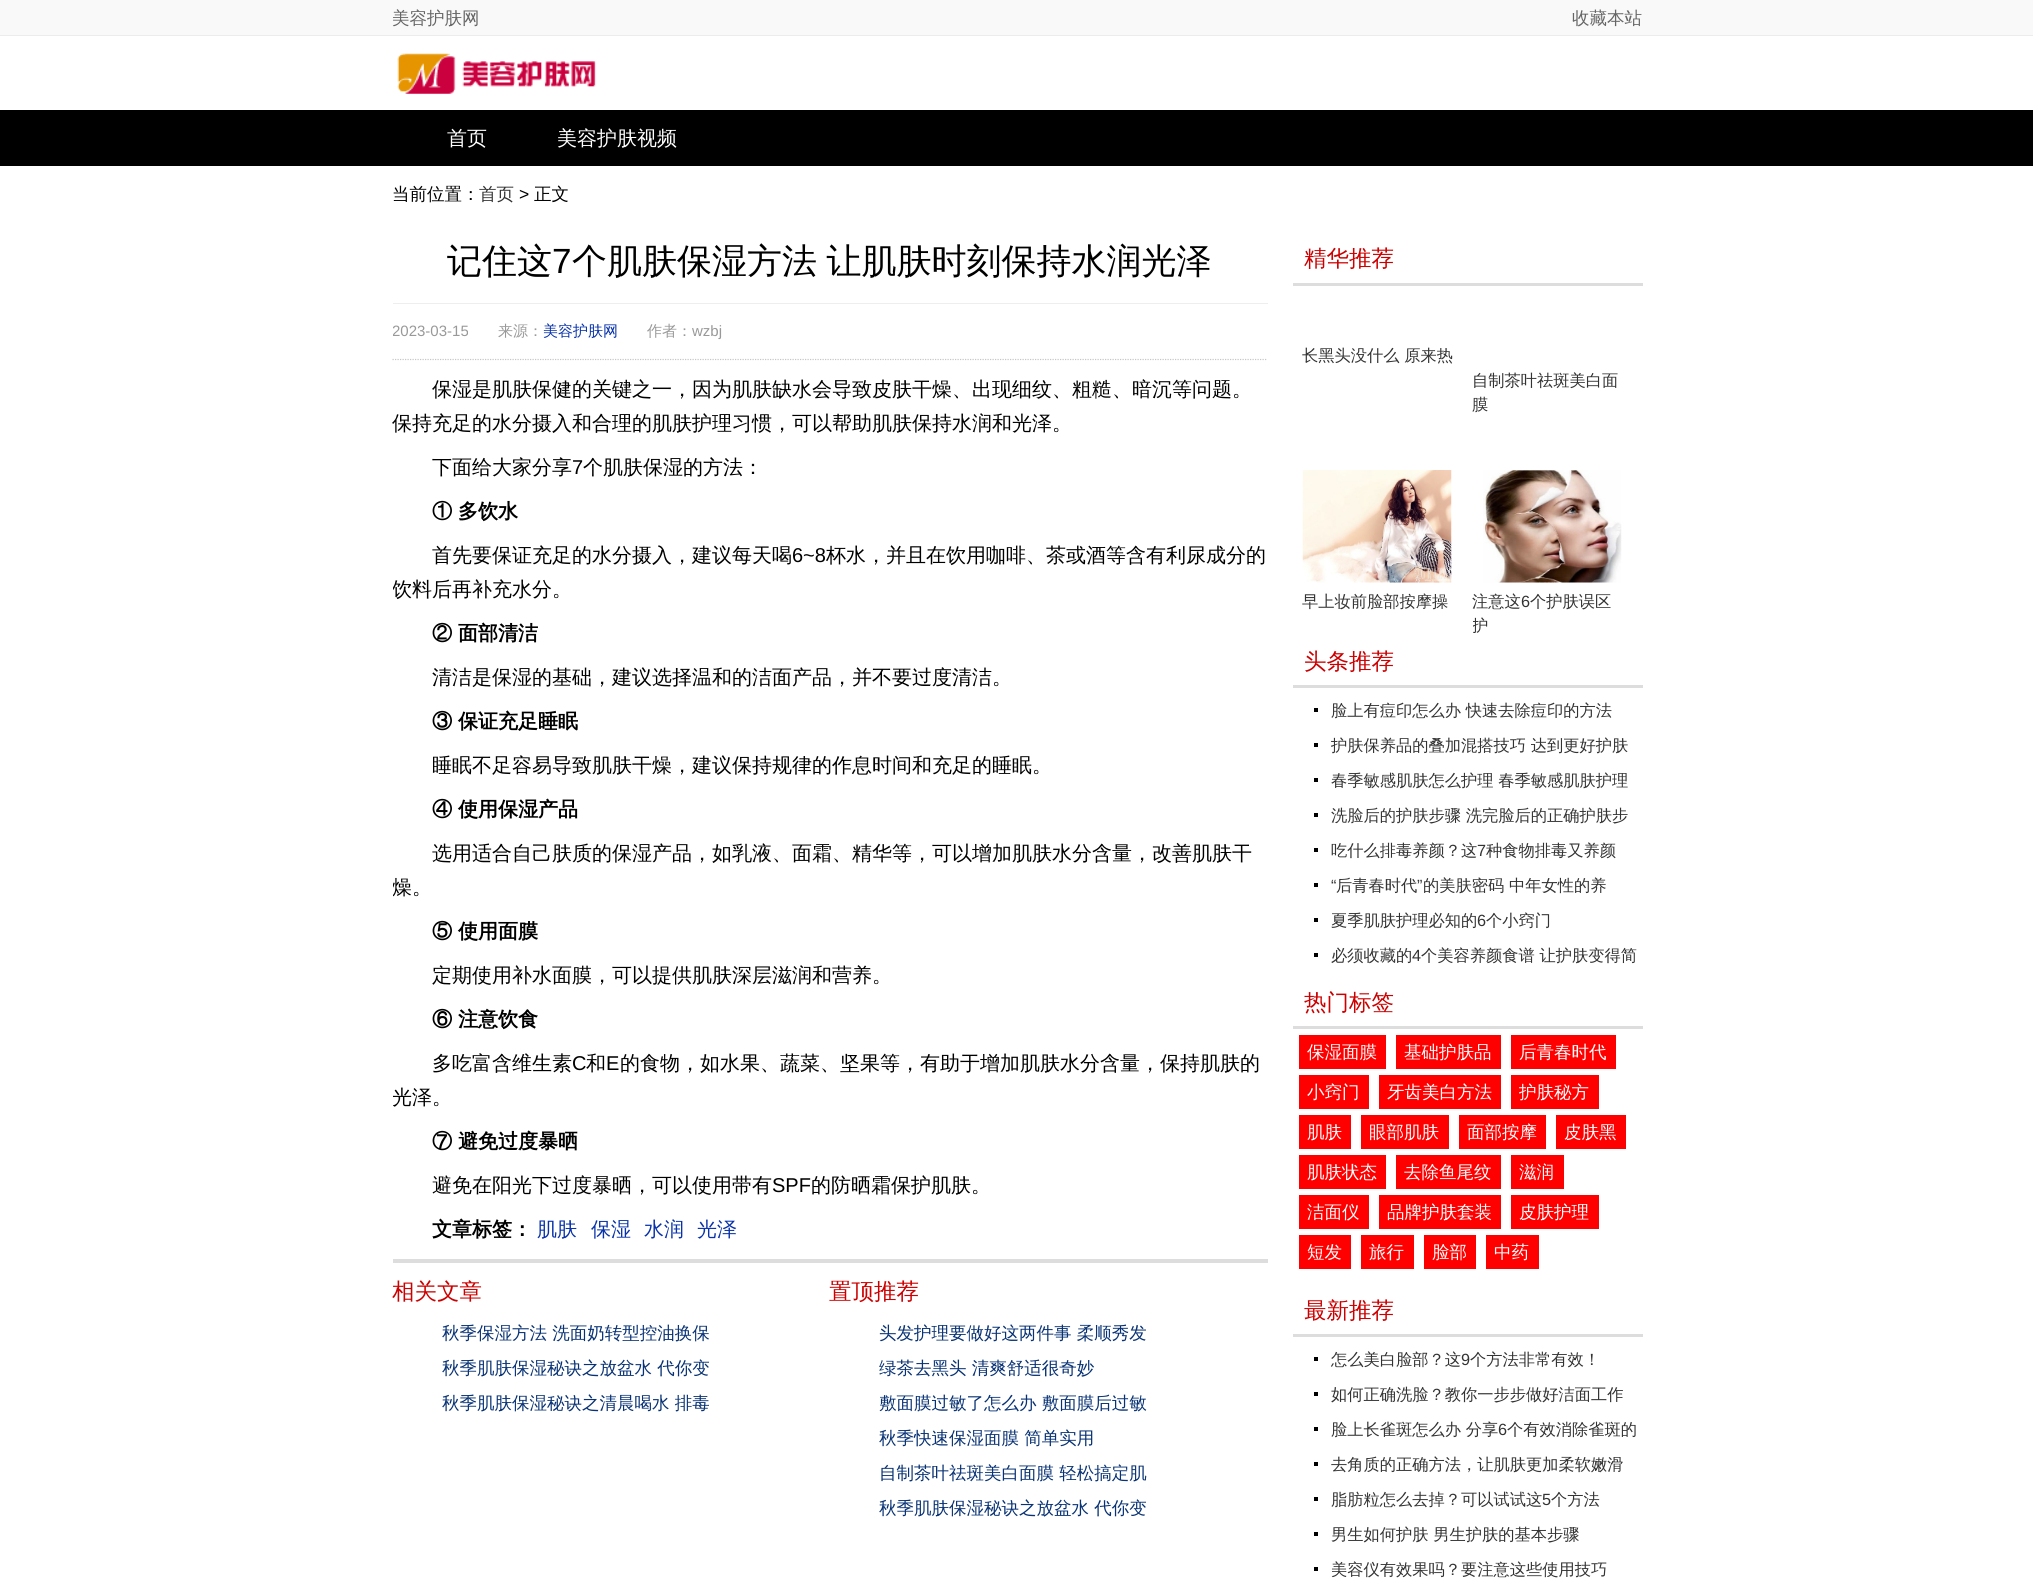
import math
import cairo

surface = cairo.ImageSurface(cairo.FORMAT_RGB24, 2033, 1595)
ctx = cairo.Context(surface)
options = cairo.FontOptions()
options.set_hint_metrics(cairo.HINT_METRICS_OFF)
options.set_hint_style(cairo.HINT_STYLE_NONE)
ctx.set_font_options(options)
ctx.set_miter_limit(4)


def spaced_text(x, y, s, letter, word):
    ctx.move_to(x, y)
    for ch in s:
        ctx.show_text(ch)
        ctx.rel_move_to(letter + word * (ch == ' '), 0)


def picture(path, x, y, w, h):
    ctx.save()
    ctx.set_source_surface(cairo.ImageSurface.create_from_png(path), x, y)
    ctx.rectangle(x, y, w, h)
    ctx.fill()
    ctx.restore()


ctx.set_source_rgb(1, 1, 1)
ctx.paint()
ctx.set_source_rgb(0.973, 0.973, 0.973)
ctx.rectangle(0, 0, 2033, 35)
ctx.fill()
ctx.set_source_rgb(0.925, 0.925, 0.925)
ctx.rectangle(0, 35, 2033, 1)
ctx.fill()
ctx.select_font_face("WenQuanYi Zen Hei Medium")
ctx.set_font_size(17.5)
ctx.set_source_rgb(0.4, 0.4, 0.4)
ctx.move_to(392, 24)
ctx.show_text("美容护肤网")
ctx.move_to(1572, 24)
ctx.show_text("收藏本站")
picture("img1.png", 397, 53, 199, 41)
ctx.set_source_rgb(0, 0, 0)
ctx.rectangle(0, 110, 2033, 56)
ctx.fill()
ctx.set_font_size(20)
ctx.set_source_rgb(1, 1, 1)
ctx.move_to(447, 145)
ctx.show_text("首页")
ctx.move_to(557, 145)
ctx.show_text("美容护肤视频")
ctx.set_font_size(17.5)
ctx.set_source_rgb(0, 0, 0)
ctx.move_to(392, 200)
ctx.show_text("当前位置：")
ctx.set_source_rgb(0.2, 0.2, 0.2)
ctx.move_to(479, 200)
ctx.show_text("首页")
ctx.select_font_face("Liberation Sans")
ctx.set_source_rgb(0, 0, 0)
ctx.move_to(519, 200)
ctx.show_text(">")
ctx.select_font_face("WenQuanYi Zen Hei Medium")
ctx.move_to(534, 200)
ctx.show_text("正文")
ctx.set_font_size(35)
ctx.move_to(447, 273)
ctx.show_text("记住这")
ctx.select_font_face("Liberation Sans")
ctx.move_to(552, 273)
ctx.show_text("7")
ctx.select_font_face("WenQuanYi Zen Hei Medium")
spaced_text(572, 273, "个肌肤保湿方法 让肌肤时刻保持水润光泽", 0, -1)
ctx.set_source_rgb(0.933, 0.933, 0.933)
ctx.rectangle(393, 303, 875, 1)
ctx.fill()
ctx.new_path()
ctx.move_to(392.5, 359.5)
ctx.line_to(1267.5, 359.5)
ctx.set_source_rgb(0.78, 0.78, 0.78)
ctx.set_line_width(1.2)
ctx.set_dash([1.25, 1.25])
ctx.stroke()
ctx.save()
ctx.rectangle(393, 218, 1250, 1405)
ctx.clip()
ctx.select_font_face("Liberation Sans")
ctx.set_font_size(15)
ctx.set_source_rgb(0.6, 0.6, 0.6)
ctx.move_to(392, 336)
ctx.show_text("2023-03-15")
ctx.restore()
ctx.set_font_size(15)
ctx.set_source_rgb(0.6, 0.6, 0.6)
ctx.move_to(498, 336)
ctx.show_text("来源：")
ctx.set_source_rgb(0.035, 0.196, 0.667)
ctx.move_to(543, 336)
ctx.show_text("美容护肤网")
ctx.set_source_rgb(0.6, 0.6, 0.6)
ctx.move_to(647, 336)
ctx.show_text("作者：")
ctx.select_font_face("Liberation Sans")
ctx.move_to(692, 336)
ctx.show_text("wzbj")
ctx.select_font_face("WenQuanYi Zen Hei Medium")
ctx.set_font_size(20)
ctx.set_source_rgb(0, 0, 0)
ctx.move_to(432, 396)
ctx.show_text("保湿是肌肤保健的关键之一，因为肌肤缺水会导致皮肤干燥、出现细纹、粗糙、暗沉等问题。")
ctx.move_to(392, 430)
ctx.show_text("保持充足的水分摄入和合理的肌肤护理习惯，可以帮助肌肤保持水润和光泽。")
ctx.move_to(432, 474)
ctx.show_text("下面给大家分享")
ctx.select_font_face("Liberation Sans")
ctx.move_to(572, 474)
ctx.show_text("7")
ctx.select_font_face("WenQuanYi Zen Hei Medium")
ctx.move_to(583, 474)
ctx.show_text("个肌肤保湿的方法：")
ctx.select_font_face("WenQuanYi Zen Hei", cairo.FONT_SLANT_NORMAL, cairo.FONT_WEIGHT_BOLD)
ctx.move_to(432, 518)
ctx.show_text("① 多饮水")
ctx.select_font_face("WenQuanYi Zen Hei Medium")
ctx.move_to(432, 562)
ctx.show_text("首先要保证充足的水分摄入，建议每天喝")
ctx.select_font_face("Liberation Sans")
ctx.move_to(792, 562)
ctx.show_text("6~8")
ctx.select_font_face("WenQuanYi Zen Hei Medium")
ctx.move_to(826, 562)
ctx.show_text("杯水，并且在饮用咖啡、茶或酒等含有利尿成分的")
ctx.save()
ctx.rectangle(393, 218, 1250, 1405)
ctx.clip()
ctx.move_to(392, 596)
ctx.show_text("饮料后再补充水分。")
ctx.restore()
ctx.select_font_face("WenQuanYi Zen Hei", cairo.FONT_SLANT_NORMAL, cairo.FONT_WEIGHT_BOLD)
ctx.move_to(432, 640)
ctx.show_text("② 面部清洁")
ctx.select_font_face("WenQuanYi Zen Hei Medium")
ctx.move_to(432, 684)
ctx.show_text("清洁是保湿的基础，建议选择温和的洁面产品，并不要过度清洁。")
ctx.select_font_face("WenQuanYi Zen Hei", cairo.FONT_SLANT_NORMAL, cairo.FONT_WEIGHT_BOLD)
ctx.move_to(432, 728)
ctx.show_text("③ 保证充足睡眠")
ctx.select_font_face("WenQuanYi Zen Hei Medium")
ctx.move_to(432, 772)
ctx.show_text("睡眠不足容易导致肌肤干燥，建议保持规律的作息时间和充足的睡眠。")
ctx.select_font_face("WenQuanYi Zen Hei", cairo.FONT_SLANT_NORMAL, cairo.FONT_WEIGHT_BOLD)
ctx.move_to(432, 816)
ctx.show_text("④ 使用保湿产品")
ctx.select_font_face("WenQuanYi Zen Hei Medium")
ctx.move_to(432, 860)
ctx.show_text("选用适合自己肤质的保湿产品，如乳液、面霜、精华等，可以增加肌肤水分含量，改善肌肤干")
ctx.save()
ctx.rectangle(393, 218, 1250, 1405)
ctx.clip()
ctx.move_to(392, 894)
ctx.show_text("燥。")
ctx.restore()
ctx.select_font_face("WenQuanYi Zen Hei", cairo.FONT_SLANT_NORMAL, cairo.FONT_WEIGHT_BOLD)
ctx.move_to(432, 938)
ctx.show_text("⑤ 使用面膜")
ctx.select_font_face("WenQuanYi Zen Hei Medium")
ctx.move_to(432, 982)
ctx.show_text("定期使用补水面膜，可以提供肌肤深层滋润和营养。")
ctx.select_font_face("WenQuanYi Zen Hei", cairo.FONT_SLANT_NORMAL, cairo.FONT_WEIGHT_BOLD)
ctx.move_to(432, 1026)
ctx.show_text("⑥ 注意饮食")
ctx.select_font_face("WenQuanYi Zen Hei Medium")
ctx.move_to(432, 1070)
ctx.show_text("多吃富含维生素")
ctx.select_font_face("Liberation Sans")
ctx.move_to(572, 1070)
ctx.show_text("C")
ctx.select_font_face("WenQuanYi Zen Hei Medium")
ctx.move_to(586, 1070)
ctx.show_text("和")
ctx.select_font_face("Liberation Sans")
ctx.move_to(606, 1070)
ctx.show_text("E")
ctx.select_font_face("WenQuanYi Zen Hei Medium")
ctx.move_to(620, 1070)
ctx.show_text("的食物，如水果、蔬菜、坚果等，有助于增加肌肤水分含量，保持肌肤的")
ctx.save()
ctx.rectangle(393, 218, 1250, 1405)
ctx.clip()
ctx.move_to(392, 1104)
ctx.show_text("光泽。")
ctx.restore()
ctx.select_font_face("WenQuanYi Zen Hei", cairo.FONT_SLANT_NORMAL, cairo.FONT_WEIGHT_BOLD)
ctx.move_to(432, 1148)
ctx.show_text("⑦ 避免过度暴晒")
ctx.select_font_face("WenQuanYi Zen Hei Medium")
ctx.move_to(432, 1192)
ctx.show_text("避免在阳光下过度暴晒，可以使用带有")
ctx.select_font_face("Liberation Sans")
ctx.move_to(772, 1192)
ctx.show_text("SPF")
ctx.select_font_face("WenQuanYi Zen Hei Medium")
ctx.move_to(811, 1192)
ctx.show_text("的防晒霜保护肌肤。")
ctx.select_font_face("WenQuanYi Zen Hei", cairo.FONT_SLANT_NORMAL, cairo.FONT_WEIGHT_BOLD)
ctx.move_to(432, 1236)
ctx.show_text("文章标签：")
ctx.select_font_face("WenQuanYi Zen Hei Medium")
ctx.set_source_rgb(0.035, 0.196, 0.667)
ctx.move_to(537, 1236)
ctx.show_text("肌肤")
ctx.move_to(591, 1236)
ctx.show_text("保湿")
ctx.move_to(644, 1236)
ctx.show_text("水润")
ctx.move_to(697, 1236)
ctx.show_text("光泽")
ctx.set_source_rgb(0.867, 0.867, 0.867)
ctx.rectangle(393, 1259, 875, 4)
ctx.fill()
ctx.set_font_size(22.5)
ctx.set_source_rgb(0.8, 0, 0)
ctx.move_to(392, 1299)
ctx.show_text("相关文章")
ctx.set_font_size(17.5)
ctx.set_source_rgb(0.035, 0.196, 0.455)
ctx.move_to(442, 1339)
ctx.show_text("秋季保湿方法 洗面奶转型控油换保")
ctx.move_to(442, 1374)
ctx.show_text("秋季肌肤保湿秘诀之放盆水 代你变")
ctx.move_to(442, 1409)
ctx.show_text("秋季肌肤保湿秘诀之清晨喝水 排毒")
ctx.set_font_size(22.5)
ctx.set_source_rgb(0.8, 0, 0)
ctx.move_to(829, 1299)
ctx.show_text("置顶推荐")
ctx.set_font_size(17.5)
ctx.set_source_rgb(0.035, 0.196, 0.455)
ctx.move_to(879, 1339)
ctx.show_text("头发护理要做好这两件事 柔顺秀发")
ctx.move_to(879, 1374)
ctx.show_text("绿茶去黑头 清爽舒适很奇妙")
ctx.move_to(879, 1409)
ctx.show_text("敷面膜过敏了怎么办 敷面膜后过敏")
ctx.move_to(879, 1444)
ctx.show_text("秋季快速保湿面膜 简单实用")
ctx.move_to(879, 1479)
ctx.show_text("自制茶叶祛斑美白面膜 轻松搞定肌")
ctx.move_to(879, 1514)
ctx.show_text("秋季肌肤保湿秘诀之放盆水 代你变")
ctx.set_source_rgb(0.867, 0.867, 0.867)
ctx.rectangle(1293, 283, 350, 3)
ctx.fill()
ctx.set_font_size(22.5)
ctx.set_source_rgb(0.8, 0, 0)
ctx.move_to(1304, 266)
ctx.show_text("精华推荐")
ctx.set_font_size(16.25)
ctx.set_source_rgb(0.2, 0.2, 0.2)
ctx.move_to(1302, 361)
ctx.show_text("长黑头没什么 原来热")
ctx.move_to(1472, 386)
ctx.show_text("自制茶叶祛斑美白面")
ctx.move_to(1472, 410)
ctx.show_text("膜")
picture("img2.png", 1302, 470, 150, 113)
ctx.move_to(1302, 607)
ctx.show_text("早上妆前脸部按摩操")
picture("img3.png", 1483, 470, 139, 113)
ctx.move_to(1472, 607)
ctx.show_text("注意这")
ctx.select_font_face("Liberation Sans")
ctx.move_to(1521, 607)
ctx.show_text("6")
ctx.select_font_face("WenQuanYi Zen Hei Medium")
ctx.move_to(1530, 607)
ctx.show_text("个护肤误区")
ctx.save()
ctx.rectangle(1473, 470, 157, 163)
ctx.clip()
ctx.move_to(1472, 631)
ctx.show_text("护")
ctx.restore()
ctx.set_source_rgb(0.867, 0.867, 0.867)
ctx.rectangle(1293, 685, 350, 3)
ctx.fill()
ctx.set_font_size(22.5)
ctx.set_source_rgb(0.8, 0, 0)
ctx.move_to(1304, 669)
ctx.show_text("头条推荐")
ctx.set_source_rgb(0, 0, 0)
ctx.rectangle(1314, 708, 4, 4)
ctx.fill()
ctx.set_font_size(16.25)
ctx.set_source_rgb(0.2, 0.2, 0.2)
ctx.move_to(1331, 716)
ctx.show_text("脸上有痘印怎么办 快速去除痘印的方法")
ctx.set_source_rgb(0, 0, 0)
ctx.rectangle(1314, 743, 4, 4)
ctx.fill()
ctx.set_source_rgb(0.2, 0.2, 0.2)
ctx.move_to(1331, 751)
ctx.show_text("护肤保养品的叠加混搭技巧 达到更好护肤")
ctx.set_source_rgb(0, 0, 0)
ctx.rectangle(1314, 778, 4, 4)
ctx.fill()
ctx.set_source_rgb(0.2, 0.2, 0.2)
ctx.move_to(1331, 786)
ctx.show_text("春季敏感肌肤怎么护理 春季敏感肌肤护理")
ctx.set_source_rgb(0, 0, 0)
ctx.rectangle(1314, 813, 4, 4)
ctx.fill()
ctx.set_source_rgb(0.2, 0.2, 0.2)
ctx.move_to(1331, 821)
ctx.show_text("洗脸后的护肤步骤 洗完脸后的正确护肤步")
ctx.set_source_rgb(0, 0, 0)
ctx.rectangle(1314, 848, 4, 4)
ctx.fill()
ctx.set_source_rgb(0.2, 0.2, 0.2)
ctx.move_to(1331, 856)
ctx.show_text("吃什么排毒养颜？这")
ctx.select_font_face("Liberation Sans")
ctx.move_to(1477, 856)
ctx.show_text("7")
ctx.select_font_face("WenQuanYi Zen Hei Medium")
ctx.move_to(1486, 856)
ctx.show_text("种食物排毒又养颜")
ctx.select_font_face("Liberation Sans")
ctx.move_to(1331, 891)
ctx.show_text("“")
ctx.select_font_face("WenQuanYi Zen Hei Medium")
ctx.move_to(1336, 891)
ctx.show_text("后青春时代")
ctx.select_font_face("Liberation Sans")
ctx.move_to(1417, 891)
ctx.show_text("”")
ctx.select_font_face("WenQuanYi Zen Hei Medium")
ctx.move_to(1423, 891)
ctx.show_text("的美肤密码 中年女性的养")
ctx.set_source_rgb(0, 0, 0)
ctx.rectangle(1314, 883, 4, 4)
ctx.fill()
ctx.rectangle(1314, 918, 4, 4)
ctx.fill()
ctx.set_source_rgb(0.2, 0.2, 0.2)
ctx.move_to(1331, 926)
ctx.show_text("夏季肌肤护理必知的")
ctx.select_font_face("Liberation Sans")
ctx.move_to(1477, 926)
ctx.show_text("6")
ctx.select_font_face("WenQuanYi Zen Hei Medium")
ctx.move_to(1486, 926)
ctx.show_text("个小窍门")
ctx.set_source_rgb(0, 0, 0)
ctx.rectangle(1314, 953, 4, 4)
ctx.fill()
ctx.set_source_rgb(0.2, 0.2, 0.2)
ctx.move_to(1331, 961)
ctx.show_text("必须收藏的")
ctx.select_font_face("Liberation Sans")
ctx.move_to(1412, 961)
ctx.show_text("4")
ctx.select_font_face("WenQuanYi Zen Hei Medium")
ctx.move_to(1421, 961)
ctx.show_text("个美容养颜食谱 让护肤变得简")
ctx.set_source_rgb(0.867, 0.867, 0.867)
ctx.rectangle(1293, 1026, 350, 3)
ctx.fill()
ctx.set_font_size(22.5)
ctx.set_source_rgb(0.8, 0, 0)
ctx.move_to(1304, 1010)
ctx.show_text("热门标签")
ctx.set_source_rgb(1, 0, 0)
ctx.rectangle(1299, 1035, 87, 34)
ctx.fill()
ctx.set_font_size(17.5)
ctx.set_source_rgb(1, 1, 1)
ctx.move_to(1307, 1058)
ctx.show_text("保湿面膜")
ctx.set_source_rgb(1, 0, 0)
ctx.rectangle(1396, 1035, 105, 34)
ctx.fill()
ctx.set_source_rgb(1, 1, 1)
ctx.move_to(1404, 1058)
ctx.show_text("基础护肤品")
ctx.set_source_rgb(1, 0, 0)
ctx.rectangle(1511, 1035, 105, 34)
ctx.fill()
ctx.set_source_rgb(1, 1, 1)
ctx.move_to(1519, 1058)
ctx.show_text("后青春时代")
ctx.set_source_rgb(1, 0, 0)
ctx.rectangle(1299, 1075, 70, 34)
ctx.fill()
ctx.set_source_rgb(1, 1, 1)
ctx.move_to(1307, 1098)
ctx.show_text("小窍门")
ctx.set_source_rgb(1, 0, 0)
ctx.rectangle(1379, 1075, 122, 34)
ctx.fill()
ctx.set_source_rgb(1, 1, 1)
ctx.move_to(1387, 1098)
ctx.show_text("牙齿美白方法")
ctx.set_source_rgb(1, 0, 0)
ctx.rectangle(1511, 1075, 88, 34)
ctx.fill()
ctx.set_source_rgb(1, 1, 1)
ctx.move_to(1519, 1098)
ctx.show_text("护肤秘方")
ctx.set_source_rgb(1, 0, 0)
ctx.rectangle(1299, 1115, 52, 34)
ctx.fill()
ctx.set_source_rgb(1, 1, 1)
ctx.move_to(1307, 1138)
ctx.show_text("肌肤")
ctx.set_source_rgb(1, 0, 0)
ctx.rectangle(1361, 1115, 88, 34)
ctx.fill()
ctx.set_source_rgb(1, 1, 1)
ctx.move_to(1369, 1138)
ctx.show_text("眼部肌肤")
ctx.set_source_rgb(1, 0, 0)
ctx.rectangle(1459, 1115, 87, 34)
ctx.fill()
ctx.set_source_rgb(1, 1, 1)
ctx.move_to(1467, 1138)
ctx.show_text("面部按摩")
ctx.set_source_rgb(1, 0, 0)
ctx.rectangle(1556, 1115, 70, 34)
ctx.fill()
ctx.set_source_rgb(1, 1, 1)
ctx.move_to(1564, 1138)
ctx.show_text("皮肤黑")
ctx.set_source_rgb(1, 0, 0)
ctx.rectangle(1299, 1155, 87, 34)
ctx.fill()
ctx.set_source_rgb(1, 1, 1)
ctx.move_to(1307, 1178)
ctx.show_text("肌肤状态")
ctx.set_source_rgb(1, 0, 0)
ctx.rectangle(1396, 1155, 105, 34)
ctx.fill()
ctx.set_source_rgb(1, 1, 1)
ctx.move_to(1404, 1178)
ctx.show_text("去除鱼尾纹")
ctx.set_source_rgb(1, 0, 0)
ctx.rectangle(1511, 1155, 53, 34)
ctx.fill()
ctx.set_source_rgb(1, 1, 1)
ctx.move_to(1519, 1178)
ctx.show_text("滋润")
ctx.set_source_rgb(1, 0, 0)
ctx.rectangle(1299, 1195, 70, 34)
ctx.fill()
ctx.set_source_rgb(1, 1, 1)
ctx.move_to(1307, 1218)
ctx.show_text("洁面仪")
ctx.set_source_rgb(1, 0, 0)
ctx.rectangle(1379, 1195, 122, 34)
ctx.fill()
ctx.set_source_rgb(1, 1, 1)
ctx.move_to(1387, 1218)
ctx.show_text("品牌护肤套装")
ctx.set_source_rgb(1, 0, 0)
ctx.rectangle(1511, 1195, 88, 34)
ctx.fill()
ctx.set_source_rgb(1, 1, 1)
ctx.move_to(1519, 1218)
ctx.show_text("皮肤护理")
ctx.set_source_rgb(1, 0, 0)
ctx.rectangle(1299, 1235, 52, 34)
ctx.fill()
ctx.set_source_rgb(1, 1, 1)
ctx.move_to(1307, 1258)
ctx.show_text("短发")
ctx.set_source_rgb(1, 0, 0)
ctx.rectangle(1361, 1235, 53, 34)
ctx.fill()
ctx.set_source_rgb(1, 1, 1)
ctx.move_to(1369, 1258)
ctx.show_text("旅行")
ctx.set_source_rgb(1, 0, 0)
ctx.rectangle(1424, 1235, 52, 34)
ctx.fill()
ctx.set_source_rgb(1, 1, 1)
ctx.move_to(1432, 1258)
ctx.show_text("脸部")
ctx.set_source_rgb(1, 0, 0)
ctx.rectangle(1486, 1235, 53, 34)
ctx.fill()
ctx.set_source_rgb(1, 1, 1)
ctx.move_to(1494, 1258)
ctx.show_text("中药")
ctx.set_source_rgb(0.867, 0.867, 0.867)
ctx.rectangle(1293, 1334, 350, 3)
ctx.fill()
ctx.set_font_size(22.5)
ctx.set_source_rgb(0.8, 0, 0)
ctx.move_to(1304, 1318)
ctx.show_text("最新推荐")
ctx.set_source_rgb(0, 0, 0)
ctx.rectangle(1314, 1357, 4, 4)
ctx.fill()
ctx.set_font_size(16.25)
ctx.set_source_rgb(0.2, 0.2, 0.2)
ctx.move_to(1331, 1365)
ctx.show_text("怎么美白脸部？这")
ctx.select_font_face("Liberation Sans")
ctx.move_to(1461, 1365)
ctx.show_text("9")
ctx.select_font_face("WenQuanYi Zen Hei Medium")
ctx.move_to(1470, 1365)
ctx.show_text("个方法非常有效！")
ctx.set_source_rgb(0, 0, 0)
ctx.rectangle(1314, 1392, 4, 4)
ctx.fill()
ctx.set_source_rgb(0.2, 0.2, 0.2)
ctx.move_to(1331, 1400)
ctx.show_text("如何正确洗脸？教你一步步做好洁面工作")
ctx.set_source_rgb(0, 0, 0)
ctx.rectangle(1314, 1427, 4, 4)
ctx.fill()
ctx.set_source_rgb(0.2, 0.2, 0.2)
ctx.move_to(1331, 1435)
ctx.show_text("脸上长雀斑怎么办 分享")
ctx.select_font_face("Liberation Sans")
ctx.move_to(1498, 1435)
ctx.show_text("6")
ctx.select_font_face("WenQuanYi Zen Hei Medium")
ctx.move_to(1507, 1435)
ctx.show_text("个有效消除雀斑的")
ctx.set_source_rgb(0, 0, 0)
ctx.rectangle(1314, 1462, 4, 4)
ctx.fill()
ctx.set_source_rgb(0.2, 0.2, 0.2)
ctx.move_to(1331, 1470)
ctx.show_text("去角质的正确方法，让肌肤更加柔软嫩滑")
ctx.set_source_rgb(0, 0, 0)
ctx.rectangle(1314, 1497, 4, 4)
ctx.fill()
ctx.set_source_rgb(0.2, 0.2, 0.2)
ctx.move_to(1331, 1505)
ctx.show_text("脂肪粒怎么去掉？可以试试这")
ctx.select_font_face("Liberation Sans")
ctx.move_to(1542, 1505)
ctx.show_text("5")
ctx.select_font_face("WenQuanYi Zen Hei Medium")
ctx.move_to(1551, 1505)
ctx.show_text("个方法")
ctx.set_source_rgb(0, 0, 0)
ctx.rectangle(1314, 1532, 4, 4)
ctx.fill()
ctx.set_source_rgb(0.2, 0.2, 0.2)
ctx.move_to(1331, 1540)
ctx.show_text("男生如何护肤 男生护肤的基本步骤")
ctx.set_source_rgb(0, 0, 0)
ctx.rectangle(1314, 1567, 4, 4)
ctx.fill()
ctx.set_source_rgb(0.2, 0.2, 0.2)
ctx.move_to(1331, 1575)
ctx.show_text("美容仪有效果吗？要注意这些使用技巧")
surface.write_to_png("page.png")
